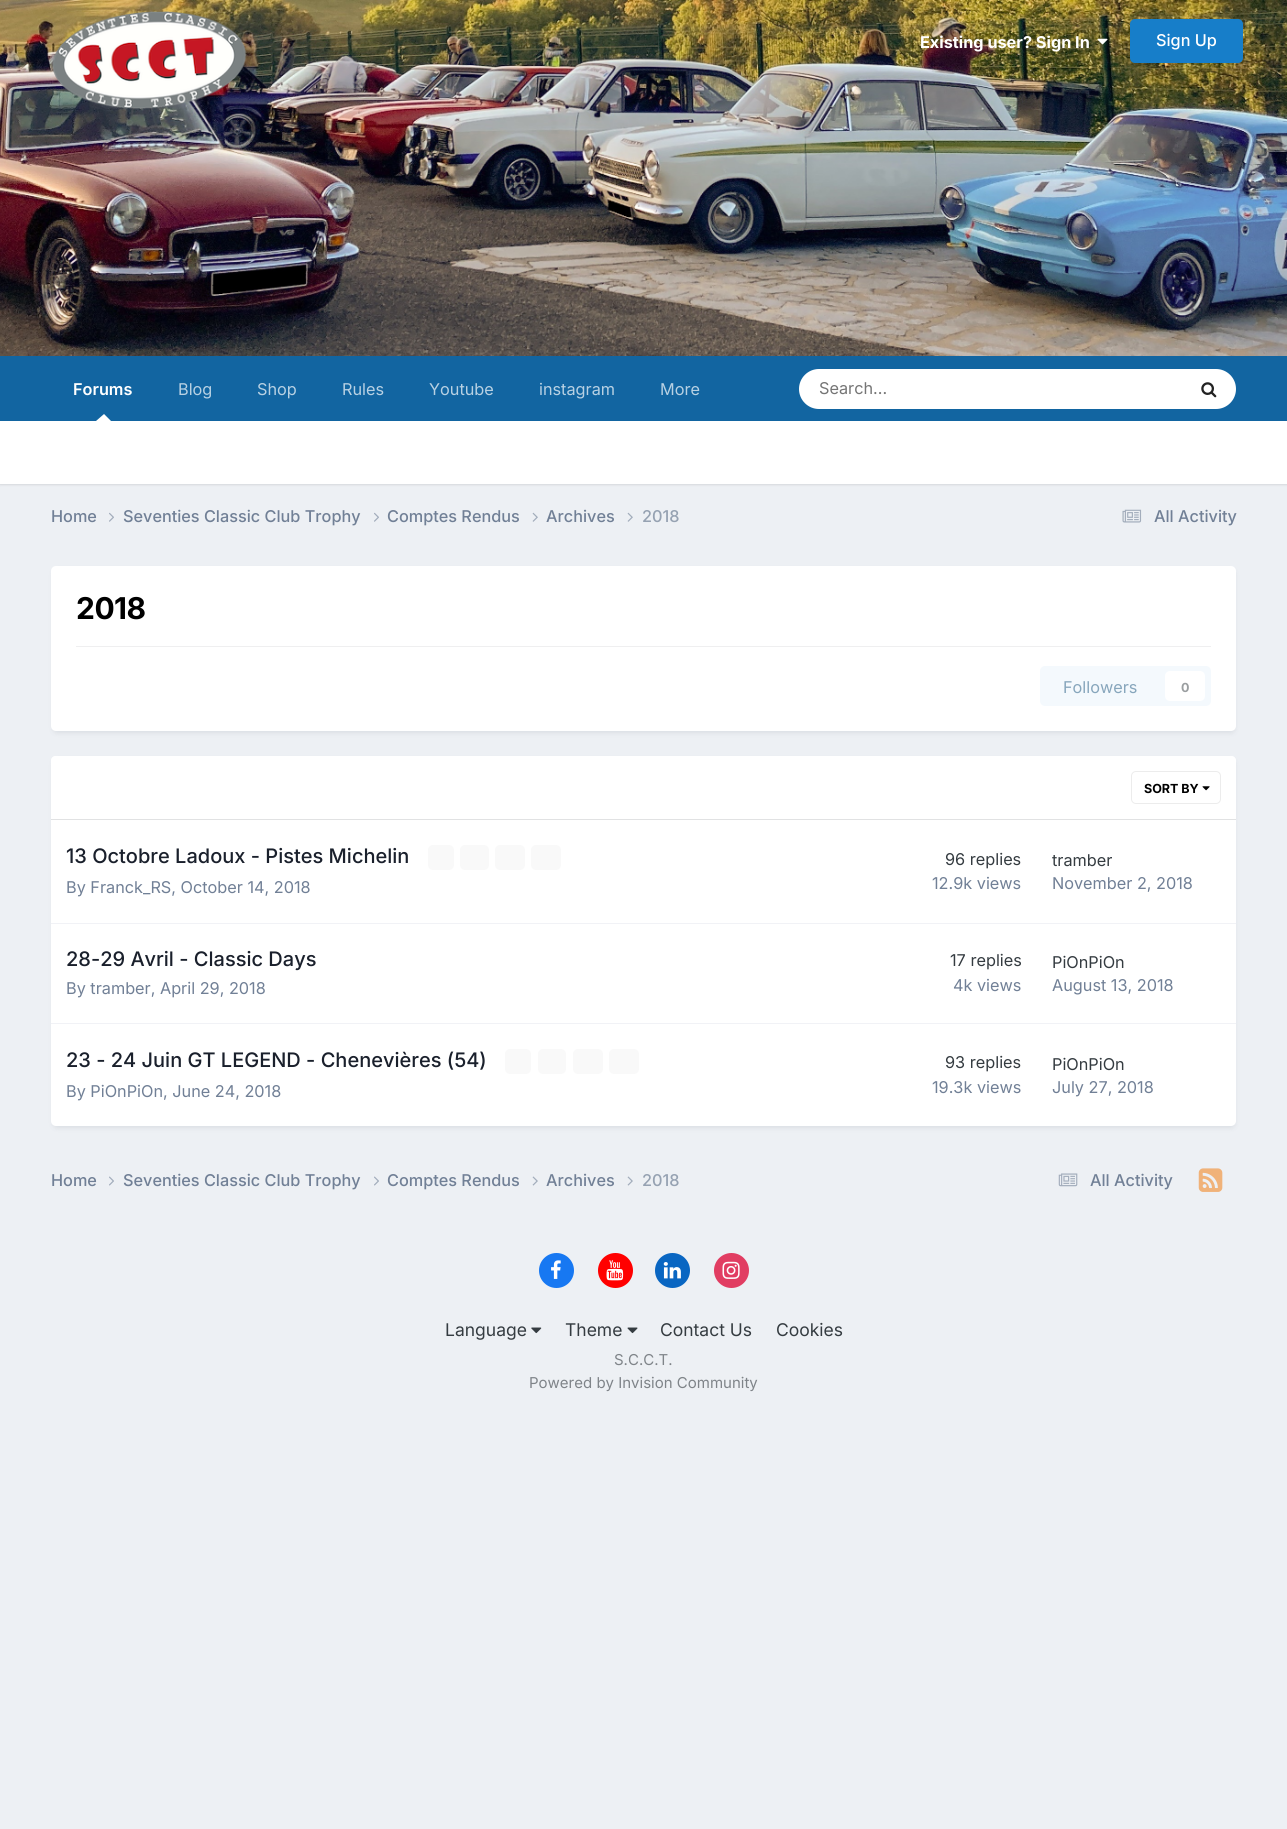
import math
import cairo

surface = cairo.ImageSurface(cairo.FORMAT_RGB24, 1287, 1829)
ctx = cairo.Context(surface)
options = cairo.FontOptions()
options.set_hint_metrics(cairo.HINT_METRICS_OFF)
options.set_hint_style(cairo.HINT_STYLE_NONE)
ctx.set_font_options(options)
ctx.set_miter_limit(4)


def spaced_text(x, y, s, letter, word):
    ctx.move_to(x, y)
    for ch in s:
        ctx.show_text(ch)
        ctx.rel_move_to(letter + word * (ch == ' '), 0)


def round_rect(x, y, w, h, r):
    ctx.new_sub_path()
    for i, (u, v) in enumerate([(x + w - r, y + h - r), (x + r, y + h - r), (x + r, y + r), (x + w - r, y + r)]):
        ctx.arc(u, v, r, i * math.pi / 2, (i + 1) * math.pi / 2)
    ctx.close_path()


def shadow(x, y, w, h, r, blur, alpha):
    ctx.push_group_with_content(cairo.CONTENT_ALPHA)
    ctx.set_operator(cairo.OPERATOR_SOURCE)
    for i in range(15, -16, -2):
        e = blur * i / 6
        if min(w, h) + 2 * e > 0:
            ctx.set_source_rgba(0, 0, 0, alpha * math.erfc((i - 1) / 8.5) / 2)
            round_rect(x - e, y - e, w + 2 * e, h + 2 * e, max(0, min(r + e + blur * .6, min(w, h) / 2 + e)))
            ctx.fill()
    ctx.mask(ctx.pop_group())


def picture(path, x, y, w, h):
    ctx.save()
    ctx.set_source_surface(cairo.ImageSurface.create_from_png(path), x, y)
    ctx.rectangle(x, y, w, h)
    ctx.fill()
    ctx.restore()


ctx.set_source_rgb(0.929, 0.941, 0.957)
ctx.paint()
picture("img1.png", 0, 0, 1287, 356)
picture("img2.png", 52, 11, 195, 98)
ctx.select_font_face("Inter", cairo.FONT_SLANT_NORMAL, cairo.FONT_WEIGHT_BOLD)
ctx.set_font_size(16.25)
ctx.set_source_rgb(1, 1, 1)
ctx.move_to(920, 48)
ctx.show_text("Existing user? Sign In")
picture("img3.png", 1097, 38, 11, 7)
ctx.set_source_rgb(0.09, 0.494, 0.788)
round_rect(1130, 19, 113, 44, 5)
ctx.fill()
ctx.select_font_face("Inter Medium")
ctx.set_source_rgb(1, 1, 1)
ctx.move_to(1156, 46)
ctx.show_text("Sign Up")
ctx.set_source_rgb(0.071, 0.396, 0.631)
ctx.rectangle(0, 356, 1287, 65)
ctx.fill()
ctx.select_font_face("Inter SemiBold")
ctx.set_source_rgb(1, 1, 1)
ctx.move_to(73, 395)
ctx.show_text("Forums")
ctx.set_source_rgb(0, 0, 0)
shadow(0, 423, 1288, 62, 0, 1, 0.1)
ctx.set_source_rgb(1, 1, 1)
ctx.new_path()
ctx.move_to(111, 421)
ctx.line_to(96, 421)
ctx.line_to(104, 414)
ctx.close_path()
ctx.fill()
ctx.select_font_face("Inter")
ctx.set_source_rgb(0.722, 0.82, 0.89)
ctx.move_to(178, 395)
ctx.show_text("Blog")
ctx.move_to(257, 395)
ctx.show_text("Shop")
ctx.move_to(342, 395)
ctx.show_text("Rules")
ctx.move_to(429, 395)
ctx.show_text("Youtube")
ctx.move_to(539, 395)
ctx.show_text("instagram")
ctx.move_to(660, 395)
ctx.show_text("More")
ctx.set_source_rgb(1, 1, 1)
round_rect(799, 369, 437, 40, 20)
ctx.fill()
ctx.set_source_rgb(0.459, 0.459, 0.459)
ctx.move_to(819, 394)
ctx.show_text("Search...")
picture("img4.png", 1201, 382, 16, 16)
ctx.set_source_rgb(1, 1, 1)
ctx.rectangle(0, 421, 1287, 63)
ctx.fill()
ctx.select_font_face("Inter Medium")
ctx.set_source_rgb(0.443, 0.502, 0.588)
ctx.move_to(51, 522)
ctx.show_text("Home")
picture("img5.png", 109, 512, 5, 10)
ctx.move_to(123, 522)
ctx.show_text("Seventies Classic Club Trophy")
picture("img5.png", 374, 512, 5, 10)
ctx.move_to(387, 522)
ctx.show_text("Comptes Rendus")
picture("img6.png", 532, 512, 6, 10)
ctx.move_to(546, 522)
ctx.show_text("Archives")
picture("img6.png", 627, 512, 6, 10)
ctx.set_source_rgb(0.588, 0.635, 0.698)
ctx.move_to(642, 522)
ctx.show_text("2018")
picture("img7.png", 1122, 509, 20, 14)
ctx.set_source_rgb(0.443, 0.502, 0.588)
ctx.move_to(1154, 522)
ctx.show_text("All Activity")
ctx.set_source_rgb(0.176, 0.216, 0.282)
shadow(53, 570, 1182, 163, 4, 2.5, 0.1)
ctx.set_source_rgb(1, 1, 1)
round_rect(51, 566, 1185, 165, 5)
ctx.fill()
ctx.select_font_face("Inter", cairo.FONT_SLANT_NORMAL, cairo.FONT_WEIGHT_BOLD)
ctx.set_font_size(30)
ctx.set_source_rgb(0, 0, 0)
spaced_text(76, 619, "2018", -0.5, 0)
ctx.set_source_rgb(0.937, 0.937, 0.941)
ctx.rectangle(76, 646, 1135, 1)
ctx.fill()
ctx.set_source_rgb(0.957, 0.976, 0.992)
round_rect(1040, 666, 171, 40, 5)
ctx.fill()
ctx.select_font_face("Inter")
ctx.set_font_size(16.25)
ctx.set_source_rgb(0.529, 0.651, 0.737)
ctx.move_to(1063, 693)
ctx.show_text("Followers")
ctx.set_source_rgb(1, 1, 1)
round_rect(1165, 671, 40, 30, 5)
ctx.fill()
ctx.select_font_face("Inter", cairo.FONT_SLANT_NORMAL, cairo.FONT_WEIGHT_BOLD)
ctx.set_font_size(12.5)
ctx.set_source_rgb(0.604, 0.62, 0.627)
ctx.move_to(1181, 692)
ctx.show_text("0")
ctx.set_source_rgb(0.176, 0.216, 0.282)
shadow(53, 760, 1182, 368, 4, 2.5, 0.1)
ctx.set_source_rgb(1, 1, 1)
round_rect(51, 756, 1185, 370, 5)
ctx.fill()
ctx.new_path()
ctx.move_to(56, 756)
ctx.line_to(1231, 756)
ctx.curve_to(1234, 756, 1236, 758, 1236, 761)
ctx.line_to(1236, 820)
ctx.line_to(51, 820)
ctx.line_to(51, 761)
ctx.curve_to(51, 758, 53, 756, 56, 756)
ctx.close_path()
ctx.fill()
ctx.set_source_rgb(0.882, 0.886, 0.89)
ctx.rectangle(51, 819, 1185, 1)
ctx.fill()
picture("img8.png", 1202, 786, 8, 5)
round_rect(1131.5, 771.5, 89, 32, 4.5)
ctx.set_source_rgb(0.922, 0.925, 0.925)
ctx.set_line_width(1)
ctx.stroke()
ctx.set_source_rgb(0, 0, 0)
ctx.move_to(1144, 793)
ctx.show_text("SORT BY")
ctx.set_source_rgb(0.945, 0.949, 0.961)
ctx.rectangle(51, 923, 1185, 1)
ctx.fill()
ctx.select_font_face("Inter Medium")
ctx.set_font_size(20)
ctx.set_source_rgb(0.102, 0.125, 0.173)
ctx.move_to(66, 863)
ctx.show_text("13 Octobre Ladoux - Pistes Michelin")
ctx.set_source_rgb(0.973, 0.973, 0.976)
round_rect(428, 845, 26, 25, 5)
ctx.fill()
round_rect(460, 845, 29, 25, 5)
ctx.fill()
round_rect(495, 845, 30, 25, 5)
ctx.fill()
round_rect(531, 845, 30, 25, 5)
ctx.fill()
ctx.select_font_face("Inter")
ctx.set_font_size(16.25)
ctx.set_source_rgb(0.443, 0.502, 0.588)
ctx.move_to(66, 893)
ctx.show_text("By Franck_RS, October 14, 2018")
ctx.set_source_rgb(0.208, 0.235, 0.255)
ctx.move_to(945, 865)
ctx.show_text("96 replies")
ctx.set_source_rgb(0.443, 0.502, 0.588)
ctx.move_to(932, 889)
ctx.show_text("12.9k views")
ctx.set_source_rgb(0.208, 0.235, 0.255)
ctx.move_to(1052, 866)
ctx.show_text("tramber")
ctx.set_source_rgb(0.443, 0.502, 0.588)
ctx.move_to(1052, 889)
ctx.show_text("November 2, 2018")
ctx.set_source_rgb(0.945, 0.949, 0.961)
ctx.rectangle(51, 1023, 1185, 1)
ctx.fill()
ctx.select_font_face("Inter Medium")
ctx.set_font_size(20)
ctx.set_source_rgb(0.102, 0.125, 0.173)
ctx.move_to(66, 966)
ctx.show_text("28-29 Avril - Classic Days")
ctx.select_font_face("Inter")
ctx.set_font_size(16.25)
ctx.set_source_rgb(0.443, 0.502, 0.588)
ctx.move_to(66, 994)
ctx.show_text("By tramber, April 29, 2018")
ctx.set_source_rgb(0.208, 0.235, 0.255)
ctx.move_to(950, 966)
ctx.show_text("17 replies")
ctx.set_source_rgb(0.443, 0.502, 0.588)
ctx.move_to(953, 991)
ctx.show_text("4k views")
ctx.set_source_rgb(0.208, 0.235, 0.255)
ctx.move_to(1052, 968)
ctx.show_text("PiOnPiOn")
ctx.set_source_rgb(0.443, 0.502, 0.588)
ctx.move_to(1052, 991)
ctx.show_text("August 13, 2018")
ctx.select_font_face("Inter Medium")
ctx.set_font_size(20)
ctx.set_source_rgb(0.102, 0.125, 0.173)
ctx.move_to(66, 1067)
ctx.show_text("23 - 24 Juin GT LEGEND - Chenevières (54)")
ctx.set_source_rgb(0.973, 0.973, 0.976)
round_rect(505, 1049, 26, 25, 5)
ctx.fill()
round_rect(538, 1049, 28, 25, 5)
ctx.fill()
round_rect(573, 1049, 30, 25, 5)
ctx.fill()
round_rect(609, 1049, 30, 25, 5)
ctx.fill()
ctx.select_font_face("Inter")
ctx.set_font_size(16.25)
ctx.set_source_rgb(0.443, 0.502, 0.588)
ctx.move_to(66, 1097)
ctx.show_text("By PiOnPiOn, June 24, 2018")
ctx.set_source_rgb(0.208, 0.235, 0.255)
ctx.move_to(945, 1068)
ctx.show_text("93 replies")
ctx.set_source_rgb(0.443, 0.502, 0.588)
ctx.move_to(932, 1093)
ctx.show_text("19.3k views")
ctx.set_source_rgb(0.208, 0.235, 0.255)
ctx.move_to(1052, 1070)
ctx.show_text("PiOnPiOn")
ctx.set_source_rgb(0.443, 0.502, 0.588)
ctx.move_to(1052, 1093)
ctx.show_text("July 27, 2018")
ctx.select_font_face("Inter Medium")
ctx.move_to(51, 1186)
ctx.show_text("Home")
picture("img9.png", 109, 1176, 5, 10)
ctx.move_to(123, 1186)
ctx.show_text("Seventies Classic Club Trophy")
picture("img9.png", 374, 1176, 5, 10)
ctx.move_to(387, 1186)
ctx.show_text("Comptes Rendus")
picture("img10.png", 532, 1176, 6, 10)
ctx.move_to(546, 1186)
ctx.show_text("Archives")
picture("img10.png", 627, 1176, 6, 10)
ctx.set_source_rgb(0.588, 0.635, 0.698)
ctx.move_to(642, 1186)
ctx.show_text("2018")
picture("img11.png", 1058, 1173, 20, 14)
ctx.set_source_rgb(0.443, 0.502, 0.588)
ctx.move_to(1090, 1186)
ctx.show_text("All Activity")
picture("img12.png", 1198, 1168, 25, 24)
ctx.set_source_rgb(0.09, 0.471, 0.949)
ctx.arc(556.5, 1270.5, 17.5, 0, 2 * math.pi)
ctx.fill()
picture("img13.png", 551, 1260, 10, 19)
ctx.set_source_rgb(1, 0, 0)
ctx.arc(615.5, 1270.5, 17.5, 0, 2 * math.pi)
ctx.fill()
picture("img14.png", 606, 1260, 18, 21)
ctx.set_source_rgb(0.039, 0.4, 0.761)
ctx.arc(672.5, 1270.5, 17.5, 0, 2 * math.pi)
ctx.fill()
picture("img15.png", 663, 1262, 18, 17)
ctx.set_source_rgb(0.882, 0.239, 0.384)
ctx.arc(731.5, 1270.5, 17.5, 0, 2 * math.pi)
ctx.fill()
picture("img16.png", 722, 1261, 18, 18)
ctx.select_font_face("Inter")
ctx.set_font_size(17.5)
ctx.set_source_rgb(0.208, 0.235, 0.255)
ctx.move_to(445, 1336)
ctx.show_text("Language")
picture("img17.png", 531, 1327, 11, 7)
ctx.move_to(565, 1336)
ctx.show_text("Theme")
picture("img18.png", 627, 1327, 11, 7)
ctx.move_to(660, 1336)
ctx.show_text("Contact Us")
ctx.move_to(776, 1336)
ctx.show_text("Cookies")
ctx.set_font_size(15)
ctx.set_source_rgb(0.498, 0.518, 0.537)
ctx.move_to(614, 1365)
ctx.show_text("S.C.C.T.")
ctx.move_to(529, 1388)
ctx.show_text("Powered by Invision Community")
surface.write_to_png("page.png")
